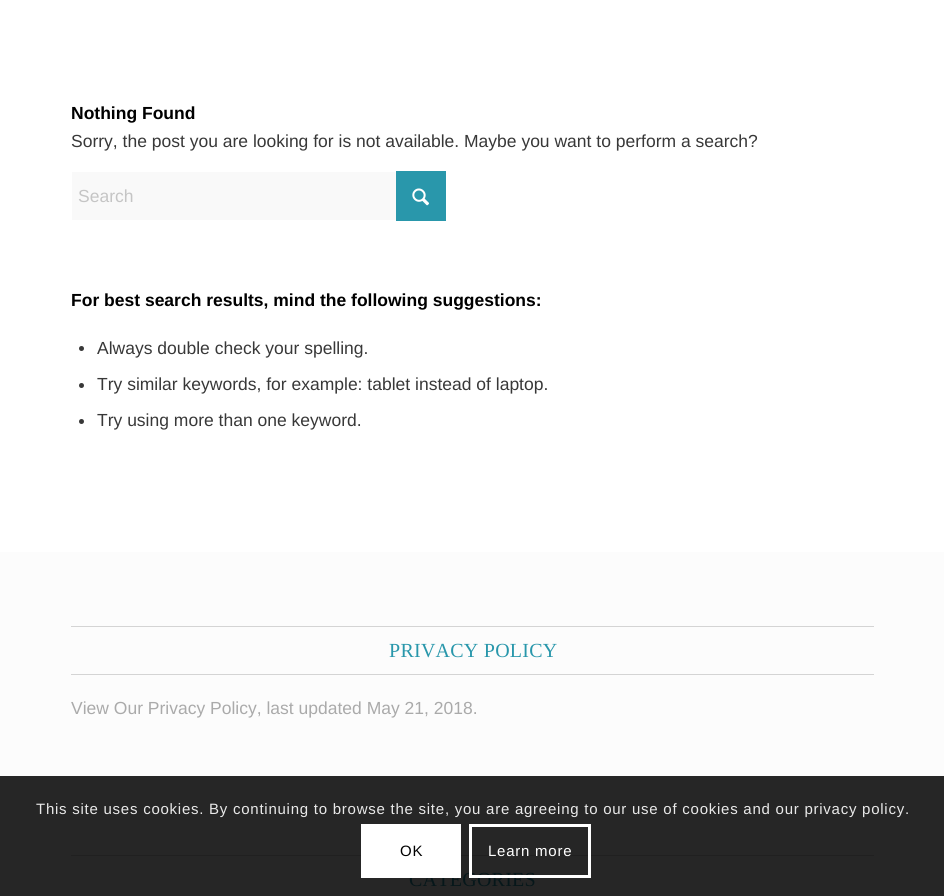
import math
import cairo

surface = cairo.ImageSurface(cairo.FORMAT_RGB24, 944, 896)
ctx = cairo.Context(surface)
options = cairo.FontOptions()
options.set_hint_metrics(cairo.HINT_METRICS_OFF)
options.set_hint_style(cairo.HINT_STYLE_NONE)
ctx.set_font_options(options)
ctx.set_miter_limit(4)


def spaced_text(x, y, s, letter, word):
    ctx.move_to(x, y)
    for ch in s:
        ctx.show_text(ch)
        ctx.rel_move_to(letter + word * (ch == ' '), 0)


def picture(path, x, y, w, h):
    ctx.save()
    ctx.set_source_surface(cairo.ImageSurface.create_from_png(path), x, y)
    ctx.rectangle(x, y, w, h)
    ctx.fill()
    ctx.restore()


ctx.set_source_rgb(1, 1, 1)
ctx.paint()
ctx.select_font_face("Liberation Sans", cairo.FONT_SLANT_NORMAL, cairo.FONT_WEIGHT_BOLD)
ctx.set_font_size(17.5)
ctx.set_source_rgb(0, 0, 0)
ctx.move_to(71, 119)
ctx.show_text("Nothing Found")
ctx.select_font_face("Liberation Sans")
ctx.set_source_rgb(0.22, 0.22, 0.22)
ctx.move_to(71, 147)
ctx.show_text("Sorry, the post you are looking for is not available. Maybe you want to perform a search?")
ctx.set_source_rgb(0.161, 0.592, 0.671)
ctx.rectangle(396, 171, 50, 50)
ctx.fill()
ctx.set_source_rgb(0.973, 0.973, 0.973)
ctx.rectangle(72, 172, 324, 48)
ctx.fill()
ctx.set_source_rgb(0.773, 0.773, 0.773)
ctx.move_to(78, 202)
ctx.show_text("Search")
picture("img1.png", 412, 188, 17, 18)
ctx.select_font_face("Liberation Sans", cairo.FONT_SLANT_NORMAL, cairo.FONT_WEIGHT_BOLD)
ctx.set_source_rgb(0, 0, 0)
ctx.move_to(71, 306)
ctx.show_text("For best search results, mind the following suggestions:")
ctx.set_source_rgb(0.22, 0.22, 0.22)
ctx.new_path()
ctx.arc(81.5, 348.5, 2.5, 0, 2 * math.pi)
ctx.fill()
ctx.select_font_face("Liberation Sans")
ctx.move_to(97, 354)
ctx.show_text("Always double check your spelling.")
ctx.new_path()
ctx.arc(81.5, 385.5, 2.5, 0, 2 * math.pi)
ctx.fill()
ctx.move_to(97, 390)
ctx.show_text("Try similar keywords, for example: tablet instead of laptop.")
ctx.new_path()
ctx.arc(81.5, 421.5, 2.5, 0, 2 * math.pi)
ctx.fill()
ctx.move_to(97, 426)
ctx.show_text("Try using more than one keyword.")
ctx.set_source_rgb(0.988, 0.988, 0.988)
ctx.rectangle(0, 552, 944, 224)
ctx.fill()
ctx.set_source_rgb(0.149, 0.149, 0.149)
ctx.rectangle(0, 776, 944, 120)
ctx.fill()
ctx.set_source_rgb(0.831, 0.831, 0.831)
ctx.rectangle(71, 626, 803, 1)
ctx.fill()
ctx.rectangle(71, 674, 803, 1)
ctx.fill()
ctx.select_font_face("Liberation Serif")
ctx.set_font_size(20)
ctx.set_source_rgb(0.161, 0.592, 0.671)
spaced_text(389, 657, "PRIVACY POLICY", 0.25, 0)
ctx.select_font_face("Liberation Sans")
ctx.set_font_size(17.5)
ctx.set_source_rgb(0.667, 0.667, 0.667)
ctx.move_to(71, 714)
ctx.show_text("View Our Privacy Policy, last updated May 21, 2018.")
ctx.set_source_rgb(0.125, 0.125, 0.125)
ctx.rectangle(71, 855, 803, 1)
ctx.fill()
ctx.select_font_face("Liberation Serif")
ctx.set_font_size(20)
ctx.set_source_rgb(0.024, 0.09, 0.102)
spaced_text(409, 886, "CATEGORIES", 0.25, 0)
ctx.select_font_face("Liberation Sans")
ctx.set_font_size(15)
ctx.set_source_rgb(0.914, 0.914, 0.914)
spaced_text(36, 814, "This site uses cookies. By continuing to browse the site, you are agreeing to our use of cookies and our privacy policy.", 0.75, 0)
ctx.set_source_rgb(1, 1, 1)
ctx.rectangle(361, 824, 100, 54)
ctx.fill()
ctx.set_source_rgb(0, 0, 0)
spaced_text(400, 856, "OK", 0.75, 0)
ctx.rectangle(470.5, 825.5, 119, 51)
ctx.set_source_rgb(1, 1, 1)
ctx.set_line_width(3)
ctx.stroke()
spaced_text(488, 856, "Learn more", 0.75, 0)
surface.write_to_png("page.png")
